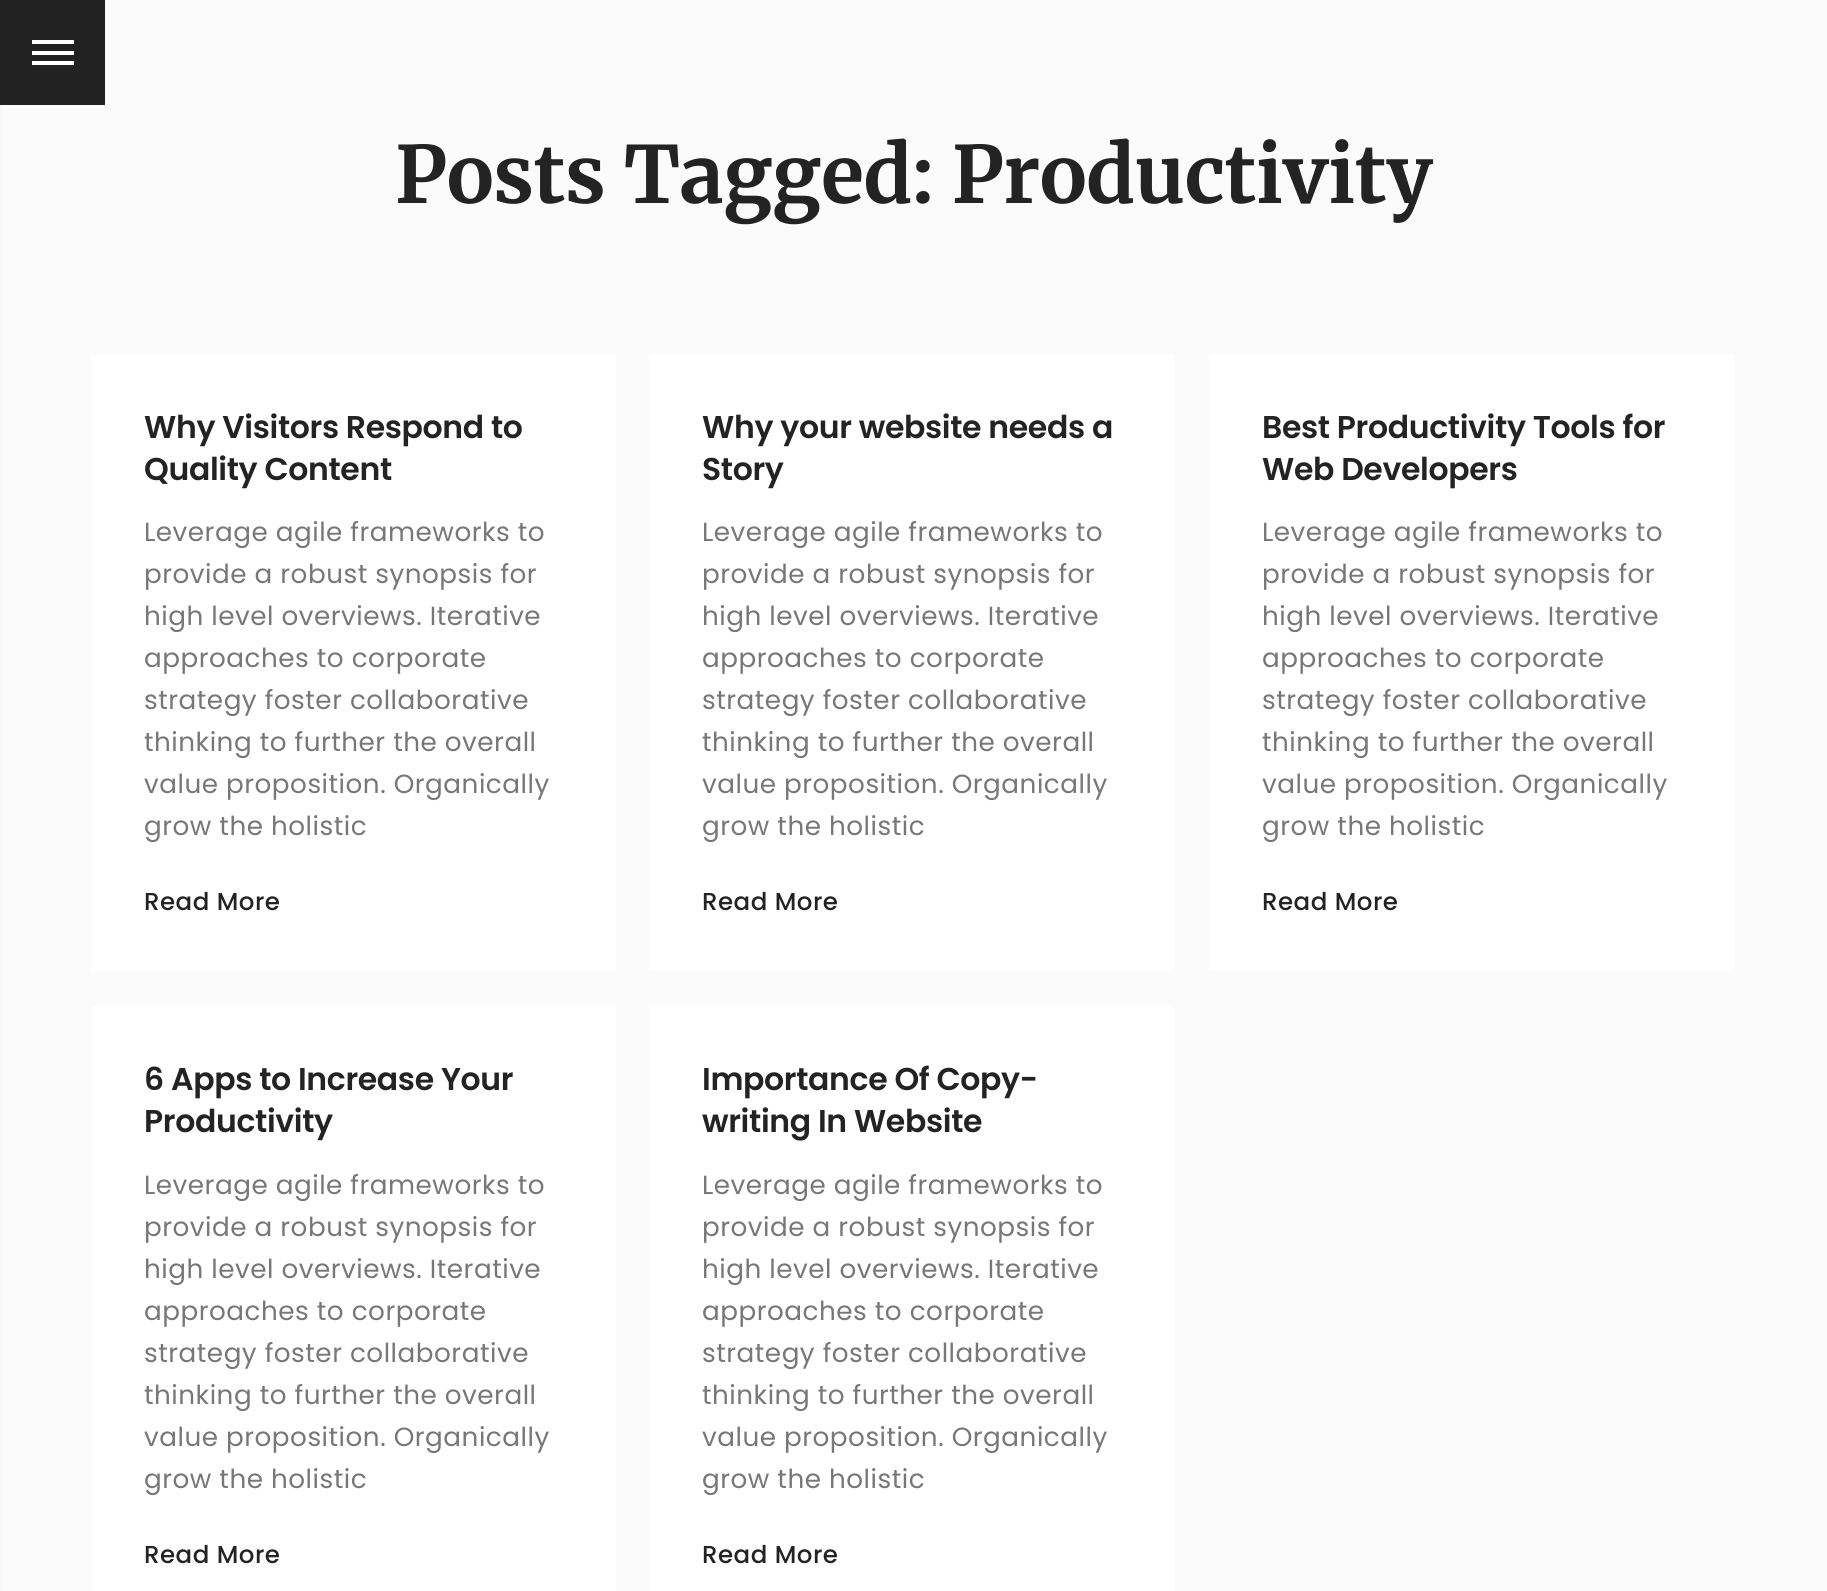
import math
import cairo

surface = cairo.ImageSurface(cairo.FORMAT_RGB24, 1827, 1591)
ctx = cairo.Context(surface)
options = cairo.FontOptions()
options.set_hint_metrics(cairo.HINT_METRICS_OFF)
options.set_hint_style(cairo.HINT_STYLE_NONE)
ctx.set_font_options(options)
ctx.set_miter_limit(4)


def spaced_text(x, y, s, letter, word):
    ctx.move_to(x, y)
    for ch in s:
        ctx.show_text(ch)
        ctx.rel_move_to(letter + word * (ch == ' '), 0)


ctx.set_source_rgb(0.984, 0.984, 0.984)
ctx.paint()
ctx.set_source_rgb(0.133, 0.133, 0.133)
ctx.rectangle(0, 0, 105, 105)
ctx.fill()
ctx.set_source_rgb(1, 1, 1)
ctx.rectangle(32, 40, 42, 4)
ctx.fill()
ctx.rectangle(32, 51, 42, 4)
ctx.fill()
ctx.rectangle(32, 61, 42, 4)
ctx.fill()
ctx.set_source_rgb(0.965, 0.965, 0.965)
ctx.rectangle(0, 105, 2, 1486)
ctx.fill()
ctx.select_font_face("Merriweather", cairo.FONT_SLANT_NORMAL, cairo.FONT_WEIGHT_BOLD)
ctx.set_font_size(78.75)
ctx.set_source_rgb(0.137, 0.137, 0.137)
spaced_text(395, 203, "Posts Tagged: Productivity", -0.35, 0)
ctx.set_source_rgb(1, 1, 1)
ctx.rectangle(91, 354, 525, 617)
ctx.fill()
ctx.select_font_face("Poppins SemiBold")
ctx.set_font_size(31.5)
ctx.set_source_rgb(0.137, 0.137, 0.137)
spaced_text(144, 438, "Why Visitors Respond to", -0.35, 0)
spaced_text(144, 480, "Quality Content", -0.35, 0)
ctx.select_font_face("Poppins")
ctx.set_font_size(26.25)
ctx.set_source_rgb(0.467, 0.467, 0.467)
spaced_text(144, 541, "Leverage agile frameworks to", 0.5, 0)
spaced_text(144, 583, "provide a robust synopsis for", 0.5, 0)
spaced_text(144, 625, "high level overviews. Iterative", 0.5, 0)
spaced_text(144, 667, "approaches to corporate", 0.5, 0)
spaced_text(144, 709, "strategy foster collaborative", 0.5, 0)
spaced_text(144, 751, "thinking to further the overall", 0.5, 0)
spaced_text(144, 793, "value proposition. Organically", 0.5, 0)
spaced_text(144, 835, "grow the holistic", 0.5, 0)
ctx.select_font_face("Poppins Medium")
ctx.set_font_size(24.5)
ctx.set_source_rgb(0.137, 0.137, 0.137)
spaced_text(144, 910, "Read More", 0.5, 0)
ctx.set_source_rgb(1, 1, 1)
ctx.rectangle(649, 354, 525, 617)
ctx.fill()
ctx.select_font_face("Poppins SemiBold")
ctx.set_font_size(31.5)
ctx.set_source_rgb(0.137, 0.137, 0.137)
spaced_text(702, 438, "Why your website needs a", -0.35, 0)
spaced_text(702, 480, "Story", -0.35, 0)
ctx.select_font_face("Poppins")
ctx.set_font_size(26.25)
ctx.set_source_rgb(0.467, 0.467, 0.467)
spaced_text(702, 541, "Leverage agile frameworks to", 0.5, 0)
spaced_text(702, 583, "provide a robust synopsis for", 0.5, 0)
spaced_text(702, 625, "high level overviews. Iterative", 0.5, 0)
spaced_text(702, 667, "approaches to corporate", 0.5, 0)
spaced_text(702, 709, "strategy foster collaborative", 0.5, 0)
spaced_text(702, 751, "thinking to further the overall", 0.5, 0)
spaced_text(702, 793, "value proposition. Organically", 0.5, 0)
spaced_text(702, 835, "grow the holistic", 0.5, 0)
ctx.select_font_face("Poppins Medium")
ctx.set_font_size(24.5)
ctx.set_source_rgb(0.137, 0.137, 0.137)
spaced_text(702, 910, "Read More", 0.5, 0)
ctx.set_source_rgb(1, 1, 1)
ctx.rectangle(1209, 354, 525, 617)
ctx.fill()
ctx.select_font_face("Poppins SemiBold")
ctx.set_font_size(31.5)
ctx.set_source_rgb(0.137, 0.137, 0.137)
spaced_text(1262, 438, "Best Productivity Tools for", -0.35, 0)
spaced_text(1262, 480, "Web Developers", -0.35, 0)
ctx.select_font_face("Poppins")
ctx.set_font_size(26.25)
ctx.set_source_rgb(0.467, 0.467, 0.467)
spaced_text(1262, 541, "Leverage agile frameworks to", 0.5, 0)
spaced_text(1262, 583, "provide a robust synopsis for", 0.5, 0)
spaced_text(1262, 625, "high level overviews. Iterative", 0.5, 0)
spaced_text(1262, 667, "approaches to corporate", 0.5, 0)
spaced_text(1262, 709, "strategy foster collaborative", 0.5, 0)
spaced_text(1262, 751, "thinking to further the overall", 0.5, 0)
spaced_text(1262, 793, "value proposition. Organically", 0.5, 0)
spaced_text(1262, 835, "grow the holistic", 0.5, 0)
ctx.select_font_face("Poppins Medium")
ctx.set_font_size(24.5)
ctx.set_source_rgb(0.137, 0.137, 0.137)
spaced_text(1262, 910, "Read More", 0.5, 0)
ctx.set_source_rgb(1, 1, 1)
ctx.rectangle(91, 1006, 525, 585)
ctx.fill()
ctx.select_font_face("Poppins SemiBold")
ctx.set_font_size(31.5)
ctx.set_source_rgb(0.137, 0.137, 0.137)
spaced_text(144, 1090, "6 Apps to Increase Your", -0.35, 0)
spaced_text(144, 1132, "Productivity", -0.35, 0)
ctx.select_font_face("Poppins")
ctx.set_font_size(26.25)
ctx.set_source_rgb(0.467, 0.467, 0.467)
spaced_text(144, 1194, "Leverage agile frameworks to", 0.5, 0)
spaced_text(144, 1236, "provide a robust synopsis for", 0.5, 0)
spaced_text(144, 1278, "high level overviews. Iterative", 0.5, 0)
spaced_text(144, 1320, "approaches to corporate", 0.5, 0)
spaced_text(144, 1362, "strategy foster collaborative", 0.5, 0)
spaced_text(144, 1404, "thinking to further the overall", 0.5, 0)
spaced_text(144, 1446, "value proposition. Organically", 0.5, 0)
spaced_text(144, 1488, "grow the holistic", 0.5, 0)
ctx.select_font_face("Poppins Medium")
ctx.set_font_size(24.5)
ctx.set_source_rgb(0.137, 0.137, 0.137)
spaced_text(144, 1563, "Read More", 0.5, 0)
ctx.set_source_rgb(1, 1, 1)
ctx.rectangle(649, 1006, 525, 585)
ctx.fill()
ctx.select_font_face("Poppins SemiBold")
ctx.set_font_size(31.5)
ctx.set_source_rgb(0.137, 0.137, 0.137)
spaced_text(702, 1090, "Importance Of Copy-", -0.35, 0)
spaced_text(702, 1132, "writing In Website", -0.35, 0)
ctx.select_font_face("Poppins")
ctx.set_font_size(26.25)
ctx.set_source_rgb(0.467, 0.467, 0.467)
spaced_text(702, 1194, "Leverage agile frameworks to", 0.5, 0)
spaced_text(702, 1236, "provide a robust synopsis for", 0.5, 0)
spaced_text(702, 1278, "high level overviews. Iterative", 0.5, 0)
spaced_text(702, 1320, "approaches to corporate", 0.5, 0)
spaced_text(702, 1362, "strategy foster collaborative", 0.5, 0)
spaced_text(702, 1404, "thinking to further the overall", 0.5, 0)
spaced_text(702, 1446, "value proposition. Organically", 0.5, 0)
spaced_text(702, 1488, "grow the holistic", 0.5, 0)
ctx.select_font_face("Poppins Medium")
ctx.set_font_size(24.5)
ctx.set_source_rgb(0.137, 0.137, 0.137)
spaced_text(702, 1563, "Read More", 0.5, 0)
surface.write_to_png("page.png")
